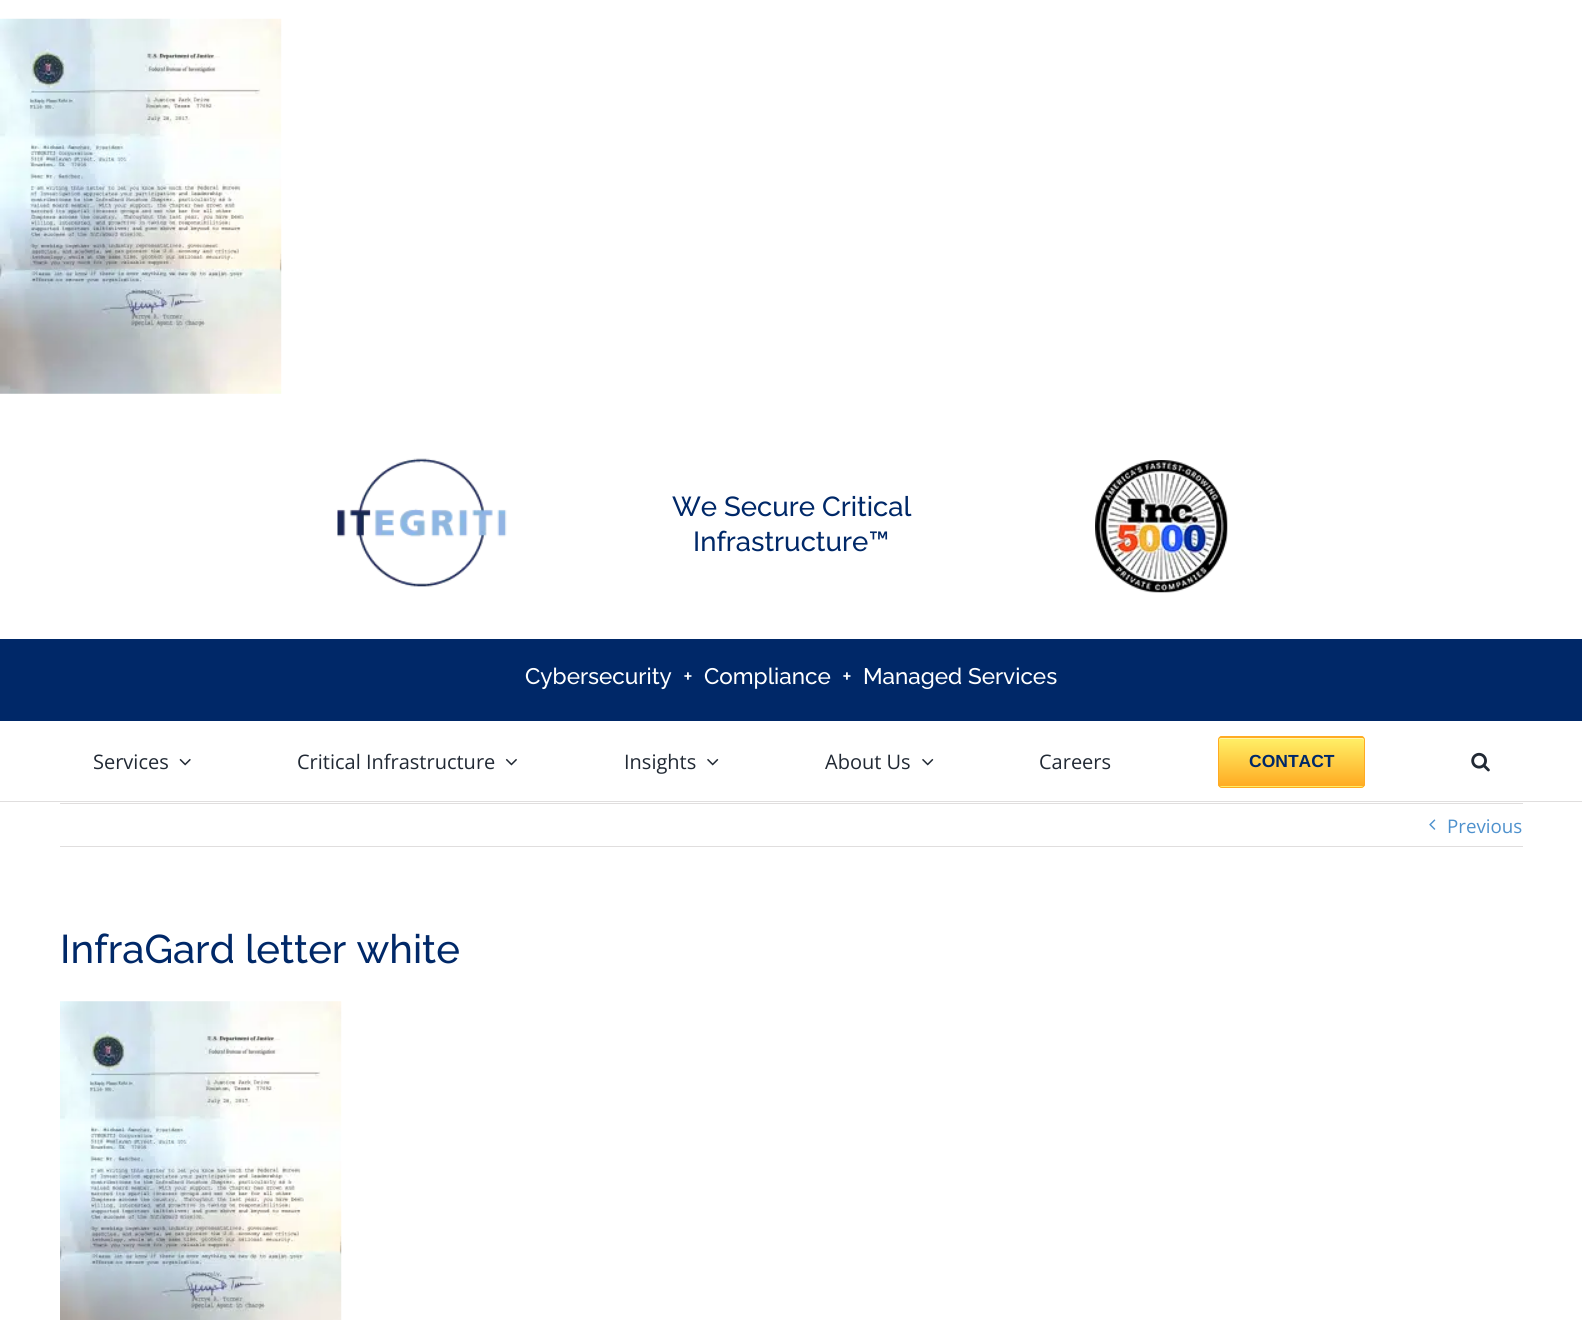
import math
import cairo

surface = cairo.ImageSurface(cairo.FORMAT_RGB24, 1582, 1320)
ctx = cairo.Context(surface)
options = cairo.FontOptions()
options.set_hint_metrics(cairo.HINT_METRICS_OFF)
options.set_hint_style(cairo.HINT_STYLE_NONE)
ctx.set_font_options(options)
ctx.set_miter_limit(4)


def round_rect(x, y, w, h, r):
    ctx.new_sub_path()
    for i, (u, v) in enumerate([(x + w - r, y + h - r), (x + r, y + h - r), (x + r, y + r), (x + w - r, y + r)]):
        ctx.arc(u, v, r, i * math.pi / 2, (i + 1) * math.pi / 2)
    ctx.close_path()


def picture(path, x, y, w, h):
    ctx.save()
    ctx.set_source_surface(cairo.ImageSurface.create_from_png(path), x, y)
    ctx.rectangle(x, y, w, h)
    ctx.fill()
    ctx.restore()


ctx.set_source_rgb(1, 1, 1)
ctx.paint()
picture("img1.png", 0, 18, 282, 376)
picture("img2.png", 337, 458, 170, 129)
ctx.select_font_face("Raleway Medium")
ctx.set_font_size(27.5)
ctx.set_source_rgb(0, 0.157, 0.408)
ctx.move_to(672, 516)
ctx.show_text("We Secure Critical")
ctx.move_to(693, 551)
ctx.show_text("Infrastructure™")
picture("img3.png", 1095, 460, 133, 133)
ctx.rectangle(0, 639, 1582, 82)
ctx.fill()
ctx.set_font_size(22.5)
ctx.set_source_rgb(1, 1, 1)
ctx.move_to(525, 684)
ctx.show_text("Cybersecurity  +  Compliance  +  Managed Services")
ctx.set_source_rgb(0.878, 0.871, 0.871)
ctx.rectangle(0, 801, 1582, 1)
ctx.fill()
ctx.select_font_face("Open Sans")
ctx.set_font_size(20)
ctx.set_source_rgb(0.129, 0.161, 0.204)
ctx.move_to(93, 769)
ctx.show_text("Services")
picture("img4.png", 179, 758, 12, 8)
ctx.move_to(297, 769)
ctx.show_text("Critical Infrastructure")
picture("img5.png", 505, 758, 12, 8)
ctx.move_to(624, 769)
ctx.show_text("Insights")
picture("img6.png", 707, 758, 12, 8)
ctx.move_to(825, 769)
ctx.show_text("About Us")
picture("img6.png", 922, 758, 12, 8)
ctx.move_to(1039, 769)
ctx.show_text("Careers")
ctx.save()
round_rect(1218, 736, 147, 52, 4)
ctx.clip()
gradient = cairo.LinearGradient(1291, 689, 1291, 738)
gradient.add_color_stop_rgba(0.05, 1, 0.929, 0.392, 1)
gradient.add_color_stop_rgba(1, 1, 0.671, 0.137, 1)
ctx.set_source(gradient)
ctx.rectangle(1218, 736, 147, 2)
ctx.fill()
gradient = cairo.LinearGradient(1291, 738, 1291, 786)
gradient.add_color_stop_rgba(0.05, 1, 0.929, 0.392, 1)
gradient.add_color_stop_rgba(1, 1, 0.671, 0.137, 1)
ctx.set_source(gradient)
ctx.rectangle(1218, 738, 147, 48)
ctx.fill()
gradient = cairo.LinearGradient(1291, 786, 1291, 835)
gradient.add_color_stop_rgba(0.05, 1, 0.929, 0.392, 1)
gradient.add_color_stop_rgba(1, 1, 0.671, 0.137, 1)
ctx.set_source(gradient)
ctx.rectangle(1218, 786, 147, 2)
ctx.fill()
ctx.restore()
ctx.set_source_rgb(1, 0.965, 0.686)
ctx.new_path()
ctx.move_to(1221, 739)
ctx.line_to(1361, 739)
ctx.curve_to(1363, 739, 1364, 740, 1364, 741)
ctx.line_to(1364, 740)
ctx.curve_to(1364, 739, 1363, 738, 1362, 738)
ctx.line_to(1222, 738)
ctx.curve_to(1220, 738, 1219, 739, 1219, 740)
ctx.line_to(1219, 741)
ctx.curve_to(1219, 740, 1220, 739, 1221, 739)
ctx.close_path()
ctx.fill()
round_rect(1218.5, 736.5, 146, 51, 3.5)
ctx.set_source_rgb(1, 0.667, 0.133)
ctx.set_line_width(1)
ctx.stroke()
ctx.select_font_face("Liberation Sans", cairo.FONT_SLANT_NORMAL, cairo.FONT_WEIGHT_BOLD)
ctx.set_font_size(17.5)
ctx.set_source_rgb(0, 0.157, 0.408)
ctx.move_to(1249, 767)
ctx.show_text("CONTACT")
picture("img7.png", 1471, 752, 19, 20)
ctx.set_source_rgb(0.878, 0.871, 0.871)
ctx.rectangle(60, 803, 1463, 1)
ctx.fill()
ctx.rectangle(60, 846, 1463, 1)
ctx.fill()
picture("img8.png", 1429, 819, 7, 11)
ctx.select_font_face("Open Sans")
ctx.set_font_size(18.75)
ctx.set_source_rgb(0.306, 0.569, 0.804)
ctx.move_to(1447, 833)
ctx.show_text("Previous")
ctx.select_font_face("Raleway Medium")
ctx.set_font_size(40)
ctx.set_source_rgb(0, 0.157, 0.408)
ctx.move_to(60, 963)
ctx.show_text("InfraGard letter white")
picture("img9.png", 60, 1001, 282, 319)
surface.write_to_png("page.png")
